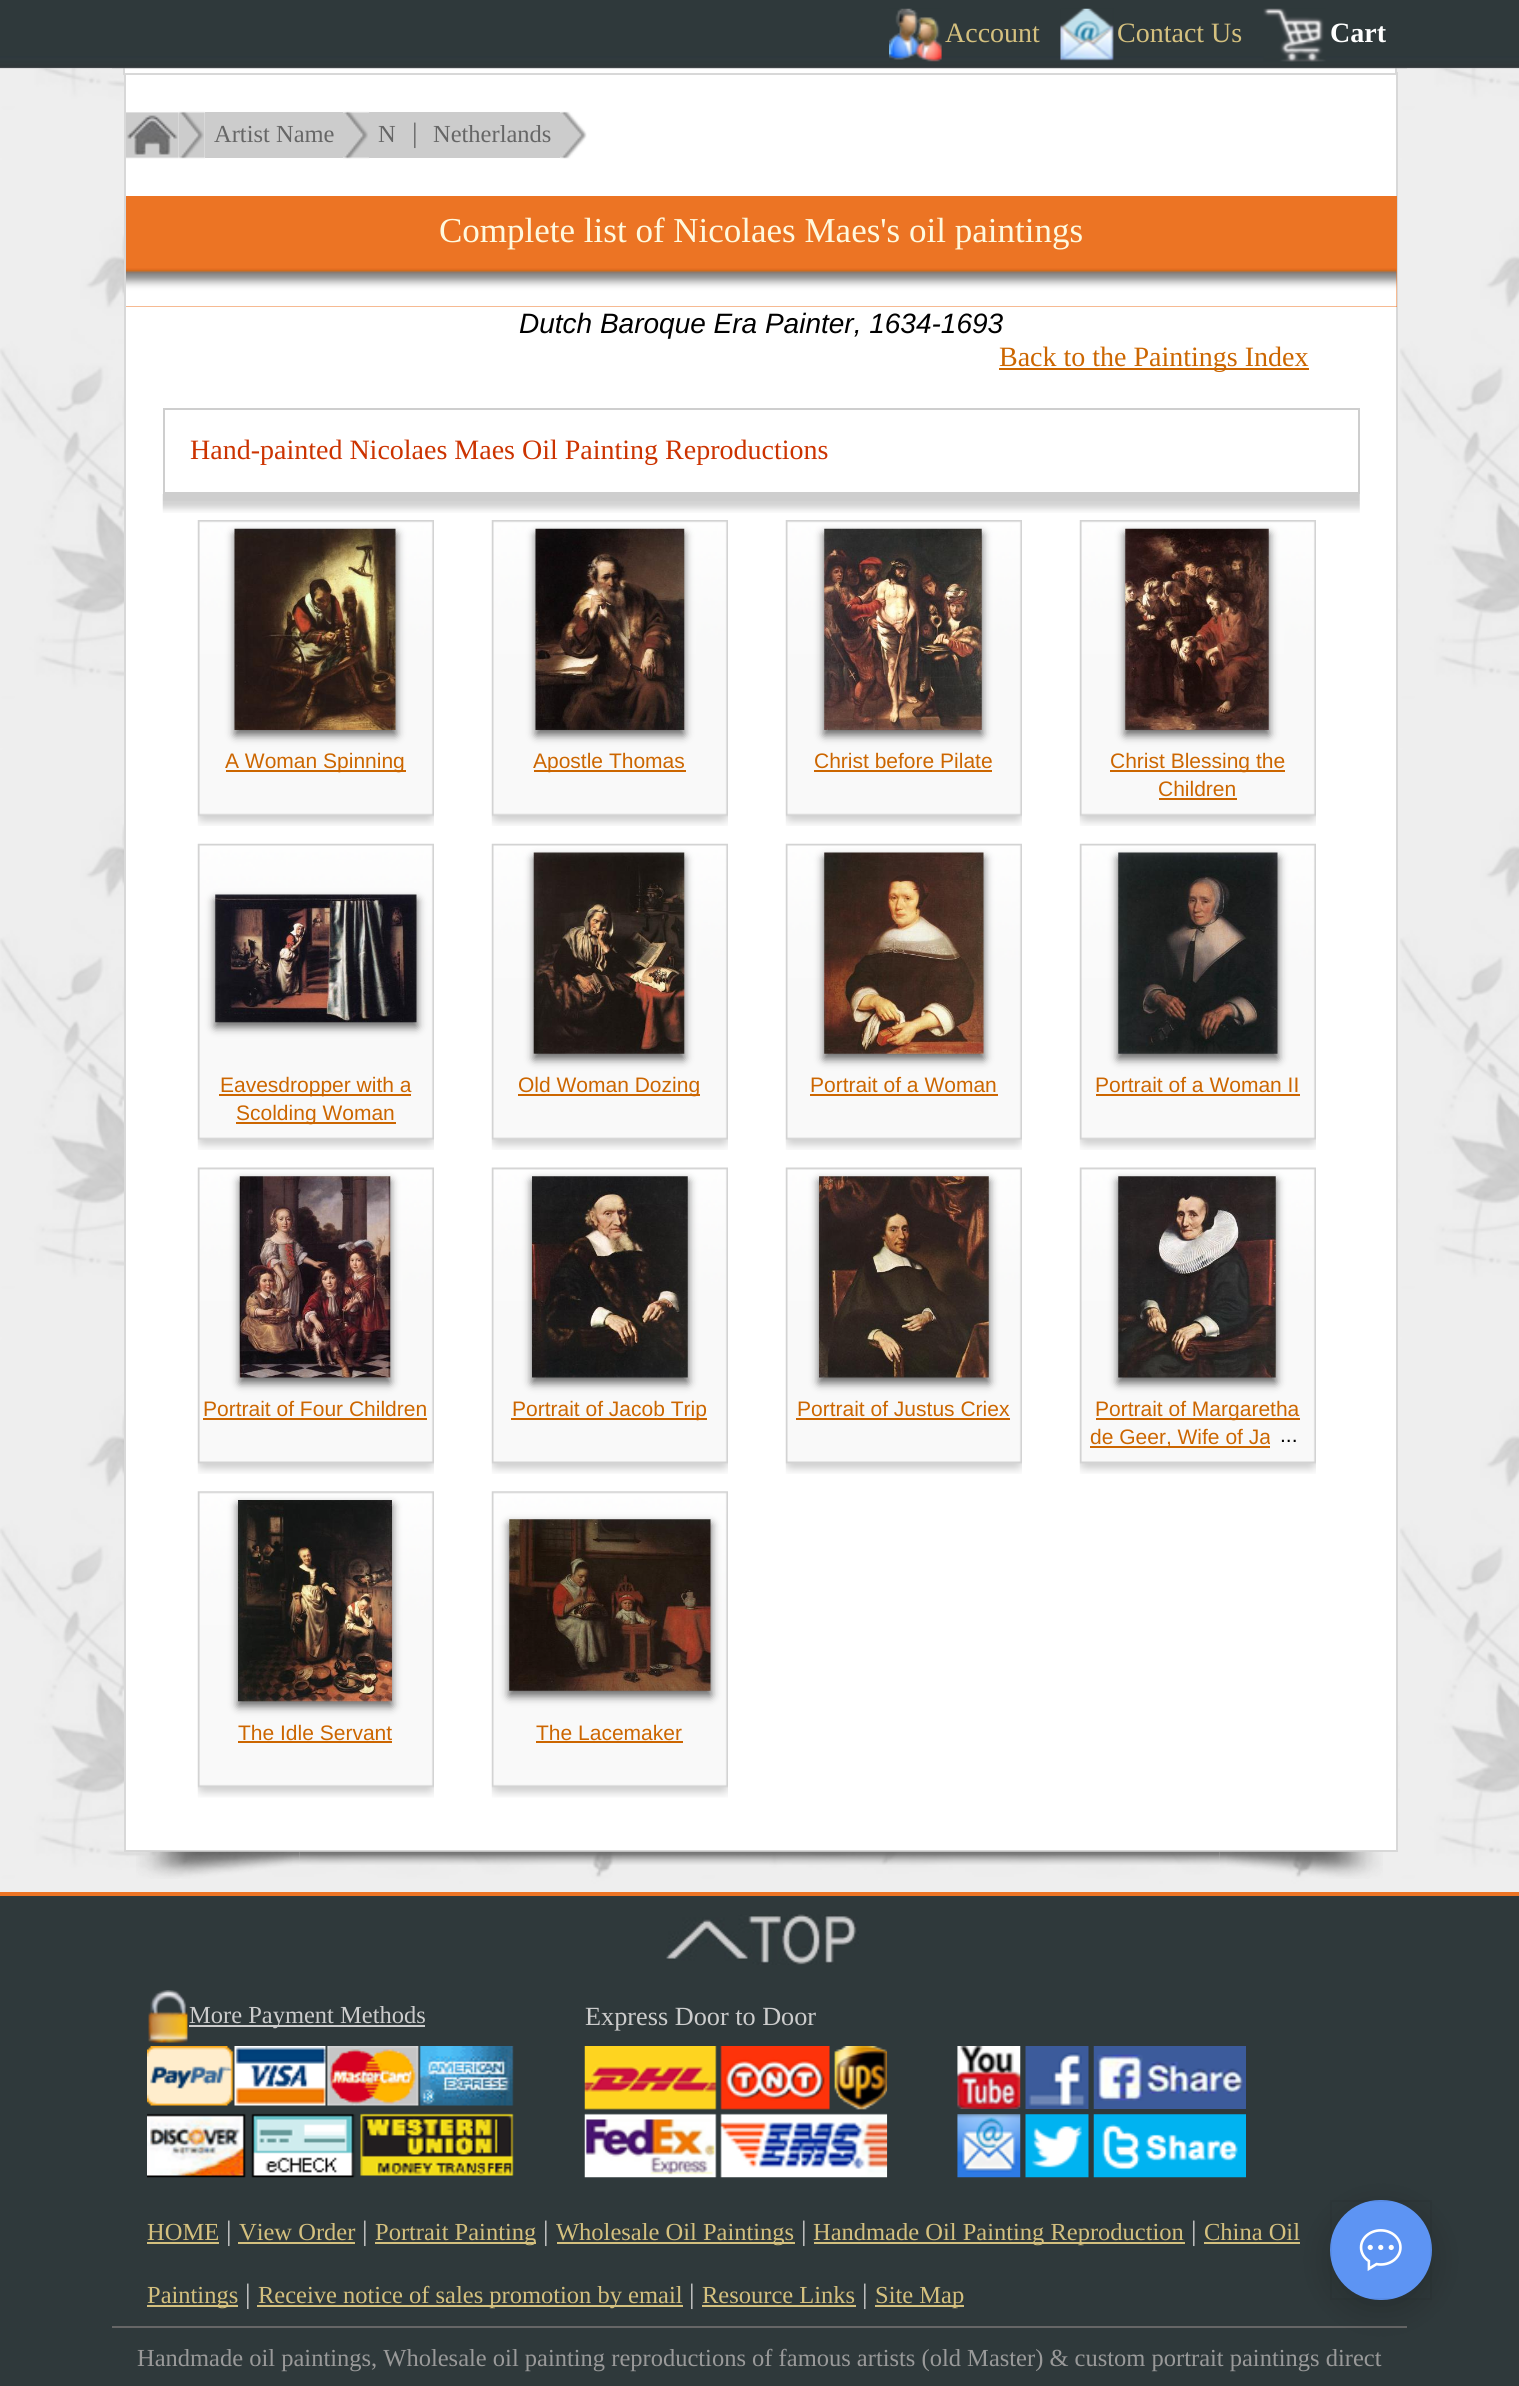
import math
import cairo

surface = cairo.ImageSurface(cairo.FORMAT_RGB24, 1519, 2386)
ctx = cairo.Context(surface)
options = cairo.FontOptions()
options.set_hint_metrics(cairo.HINT_METRICS_OFF)
options.set_hint_style(cairo.HINT_STYLE_NONE)
ctx.set_font_options(options)
ctx.set_miter_limit(4)


def round_rect(x, y, w, h, r):
    ctx.new_sub_path()
    for i, (u, v) in enumerate([(x + w - r, y + h - r), (x + r, y + h - r), (x + r, y + r), (x + w - r, y + r)]):
        ctx.arc(u, v, r, i * math.pi / 2, (i + 1) * math.pi / 2)
    ctx.close_path()


def shadow(x, y, w, h, r, blur, alpha):
    ctx.push_group_with_content(cairo.CONTENT_ALPHA)
    ctx.set_operator(cairo.OPERATOR_SOURCE)
    for i in range(15, -16, -2):
        e = blur * i / 6
        if min(w, h) + 2 * e > 0:
            ctx.set_source_rgba(0, 0, 0, alpha * math.erfc((i - 1) / 8.5) / 2)
            round_rect(x - e, y - e, w + 2 * e, h + 2 * e, max(0, min(r + e + blur * .6, min(w, h) / 2 + e)))
            ctx.fill()
    ctx.mask(ctx.pop_group())


def picture(path, x, y, w, h):
    ctx.save()
    ctx.set_source_surface(cairo.ImageSurface.create_from_png(path), x, y)
    ctx.rectangle(x, y, w, h)
    ctx.fill()
    ctx.restore()


ctx.set_source_rgb(1, 1, 1)
ctx.paint()
picture("img1.png", 0, 68, 1519, 1824)
ctx.set_source_rgb(1, 1, 1)
ctx.rectangle(126, 75, 1270, 1775)
ctx.fill()
ctx.rectangle(125, 73, 1272, 1778)
ctx.set_source_rgb(0.847, 0.847, 0.847)
ctx.stroke()
ctx.set_source_rgb(1, 1, 1)
ctx.rectangle(125, 68, 1270, 5)
ctx.fill()
ctx.rectangle(124, -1, 1272, 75)
ctx.set_source_rgb(0.847, 0.847, 0.847)
ctx.stroke()
picture("img2.png", 0, 0, 1519, 69)
picture("img3.png", 112, 68, 1295, 1)
picture("img4.png", 889, 8, 53, 54)
ctx.select_font_face("Liberation Serif")
ctx.set_font_size(28)
ctx.set_source_rgb(0.831, 0.753, 0.494)
ctx.move_to(945, 42)
ctx.show_text("Account")
picture("img5.png", 1060, 8, 54, 53)
ctx.move_to(1117, 42)
ctx.show_text("Contact Us")
picture("img6.png", 1263, 8, 63, 54)
ctx.select_font_face("Liberation Serif", cairo.FONT_SLANT_NORMAL, cairo.FONT_WEIGHT_BOLD)
ctx.set_source_rgb(1, 1, 1)
ctx.move_to(1330, 42)
ctx.show_text("Cart")
picture("img7.png", 126, 112, 53, 47)
picture("img8.png", 178, 111, 27, 48)
ctx.set_source_rgb(0.8, 0.8, 0.8)
ctx.rectangle(205, 112, 138, 46)
ctx.fill()
ctx.select_font_face("Liberation Serif")
ctx.set_font_size(24.5)
ctx.set_source_rgb(0.4, 0.4, 0.4)
ctx.move_to(214, 142)
ctx.show_text("Artist Name")
picture("img9.png", 343, 111, 27, 48)
ctx.set_source_rgb(0.8, 0.8, 0.8)
ctx.rectangle(369, 112, 191, 46)
ctx.fill()
ctx.set_source_rgb(0.4, 0.4, 0.4)
ctx.move_to(378, 142)
ctx.show_text("N")
ctx.set_font_size(28)
ctx.move_to(412, 142)
ctx.show_text("|")
ctx.set_font_size(24.5)
ctx.move_to(433, 142)
ctx.show_text("Netherlands")
picture("img10.png", 560, 111, 27, 48)
ctx.set_source_rgb(0.922, 0.455, 0.141)
ctx.rectangle(126, 196, 1271, 111)
ctx.fill()
ctx.set_font_size(35)
ctx.set_source_rgb(0.996, 0.973, 0.871)
ctx.move_to(439, 242)
ctx.show_text("Complete list of Nicolaes Maes's oil paintings")
picture("img11.png", 126, 268, 1271, 39)
ctx.select_font_face("Liberation Sans", cairo.FONT_SLANT_ITALIC)
ctx.set_font_size(28)
ctx.set_source_rgb(0, 0, 0)
ctx.move_to(519, 333)
ctx.show_text("Dutch Baroque Era Painter, 1634-1693")
ctx.set_source_rgb(0.8, 0.4, 0)
ctx.rectangle(999, 368, 310, 2)
ctx.fill()
ctx.select_font_face("Liberation Serif")
ctx.move_to(999, 366)
ctx.show_text("Back to the Paintings Index")
ctx.rectangle(164, 409, 1195, 84)
ctx.set_source_rgb(0.808, 0.808, 0.808)
ctx.stroke()
ctx.set_source_rgb(0.8, 0.2, 0)
ctx.move_to(190, 459)
ctx.show_text("Hand-painted Nicolaes Maes Oil Painting Reproductions")
picture("img12.png", 162, 494, 1198, 19)
picture("img13.png", 197, 520, 237, 306)
ctx.set_source_rgb(0.4, 0.4, 0.4)
shadow(235, 534, 161, 201, 0, 4.5, 1)
picture("img14.png", 234, 528, 162, 202)
ctx.set_source_rgb(0.8, 0.4, 0)
ctx.rectangle(226, 770, 180, 2)
ctx.fill()
ctx.select_font_face("Liberation Sans")
ctx.set_font_size(21)
ctx.move_to(225, 768)
ctx.show_text("A Woman Spinning")
picture("img15.png", 491, 520, 237, 306)
ctx.set_source_rgb(0.4, 0.4, 0.4)
shadow(536, 534, 148, 201, 0, 4.5, 1)
picture("img16.png", 535, 528, 150, 202)
ctx.set_source_rgb(0.8, 0.4, 0)
ctx.rectangle(534, 770, 152, 2)
ctx.fill()
ctx.move_to(533, 768)
ctx.show_text("Apostle Thomas")
picture("img15.png", 785, 520, 237, 306)
ctx.set_source_rgb(0.4, 0.4, 0.4)
shadow(824, 534, 158, 201, 0, 4.5, 1)
picture("img17.png", 824, 528, 158, 202)
ctx.set_source_rgb(0.8, 0.4, 0)
ctx.move_to(814, 768)
ctx.show_text("Christ before Pilate")
ctx.rectangle(814, 770, 178, 2)
ctx.fill()
picture("img13.png", 1079, 520, 237, 306)
ctx.set_source_rgb(0.4, 0.4, 0.4)
shadow(1125, 534, 144, 201, 0, 4.5, 1)
picture("img18.png", 1125, 528, 144, 202)
ctx.set_source_rgb(0.8, 0.4, 0)
ctx.rectangle(1110, 770, 175, 2)
ctx.fill()
ctx.move_to(1110, 768)
ctx.show_text("Christ Blessing the")
ctx.move_to(1158, 796)
ctx.show_text("Children")
ctx.rectangle(1159, 798, 78, 2)
ctx.fill()
picture("img19.png", 197, 843, 237, 307)
ctx.set_source_rgb(0.4, 0.4, 0.4)
shadow(215, 900, 202, 127, 0, 4.5, 1)
picture("img20.png", 215, 894, 202, 129)
ctx.set_source_rgb(0.8, 0.4, 0)
ctx.rectangle(219, 1094, 192, 2)
ctx.fill()
ctx.move_to(220, 1092)
ctx.show_text("Eavesdropper with a")
ctx.rectangle(236, 1122, 160, 2)
ctx.fill()
ctx.move_to(236, 1120)
ctx.show_text("Scolding Woman")
picture("img21.png", 491, 843, 237, 307)
ctx.set_source_rgb(0.4, 0.4, 0.4)
shadow(534, 858, 150, 201, 0, 4.5, 1)
picture("img22.png", 533, 852, 152, 202)
ctx.set_source_rgb(0.8, 0.4, 0)
ctx.rectangle(518, 1094, 182, 2)
ctx.fill()
ctx.move_to(518, 1092)
ctx.show_text("Old Woman Dozing")
picture("img21.png", 785, 843, 237, 307)
ctx.set_source_rgb(0.4, 0.4, 0.4)
shadow(824, 858, 160, 201, 0, 4.5, 1)
picture("img23.png", 824, 852, 160, 202)
ctx.set_source_rgb(0.8, 0.4, 0)
ctx.move_to(810, 1092)
ctx.show_text("Portrait of a Woman")
ctx.rectangle(810, 1094, 188, 2)
ctx.fill()
picture("img19.png", 1079, 843, 237, 307)
ctx.set_source_rgb(0.4, 0.4, 0.4)
shadow(1118, 858, 160, 201, 0, 4.5, 1)
picture("img24.png", 1118, 852, 160, 202)
ctx.set_source_rgb(0.8, 0.4, 0)
ctx.move_to(1095, 1092)
ctx.show_text("Portrait of a Woman II")
ctx.rectangle(1096, 1094, 204, 2)
ctx.fill()
picture("img25.png", 197, 1167, 237, 307)
ctx.set_source_rgb(0.4, 0.4, 0.4)
shadow(240, 1181, 150, 202, 0, 4.5, 1)
picture("img26.png", 239, 1176, 152, 202)
ctx.set_source_rgb(0.8, 0.4, 0)
ctx.move_to(203, 1416)
ctx.show_text("Portrait of Four Children")
ctx.rectangle(203, 1418, 224, 2)
ctx.fill()
picture("img27.png", 491, 1167, 237, 307)
ctx.set_source_rgb(0.4, 0.4, 0.4)
shadow(532, 1181, 156, 202, 0, 4.5, 1)
picture("img28.png", 532, 1176, 156, 202)
ctx.set_source_rgb(0.8, 0.4, 0)
ctx.rectangle(511, 1418, 196, 2)
ctx.fill()
ctx.move_to(512, 1416)
ctx.show_text("Portrait of Jacob Trip")
picture("img27.png", 785, 1167, 237, 307)
ctx.set_source_rgb(0.4, 0.4, 0.4)
shadow(819, 1181, 170, 202, 0, 4.5, 1)
picture("img29.png", 819, 1176, 170, 202)
ctx.set_source_rgb(0.8, 0.4, 0)
ctx.move_to(797, 1416)
ctx.show_text("Portrait of Justus Criex")
ctx.rectangle(796, 1418, 214, 2)
ctx.fill()
picture("img25.png", 1079, 1167, 237, 307)
ctx.set_source_rgb(0.4, 0.4, 0.4)
shadow(1118, 1181, 158, 202, 0, 4.5, 1)
picture("img30.png", 1118, 1176, 158, 202)
ctx.set_source_rgb(0.8, 0.4, 0)
ctx.rectangle(1096, 1418, 204, 2)
ctx.fill()
ctx.move_to(1095, 1416)
ctx.show_text("Portrait of Margaretha")
ctx.rectangle(1090, 1446, 180, 2)
ctx.fill()
ctx.move_to(1090, 1444)
ctx.show_text("de Geer, Wife of Ja")
ctx.set_source_rgb(0.976, 0.976, 0.976)
ctx.rectangle(1270, 1442, 1, 2)
ctx.fill()
ctx.set_source_rgb(0, 0, 0)
ctx.move_to(1280, 1442)
ctx.show_text("...")
picture("img31.png", 197, 1491, 237, 307)
ctx.set_source_rgb(0.4, 0.4, 0.4)
shadow(238, 1505, 154, 201, 0, 4.5, 1)
picture("img32.png", 238, 1500, 154, 202)
ctx.set_source_rgb(0.8, 0.4, 0)
ctx.move_to(238, 1740)
ctx.show_text("The Idle Servant")
ctx.rectangle(238, 1741, 154, 2)
ctx.fill()
picture("img33.png", 491, 1491, 237, 307)
ctx.set_source_rgb(0.4, 0.4, 0.4)
shadow(509, 1524, 202, 172, 0, 4.5, 1)
picture("img34.png", 509, 1519, 202, 172)
ctx.set_source_rgb(0.8, 0.4, 0)
ctx.move_to(536, 1740)
ctx.show_text("The Lacemaker")
ctx.rectangle(536, 1741, 147, 2)
ctx.fill()
picture("img35.png", 136, 1851, 164, 28)
picture("img36.png", 299, 1851, 921, 14)
picture("img37.png", 1219, 1851, 164, 28)
ctx.set_source_rgb(0.922, 0.455, 0.141)
ctx.rectangle(0, 1892, 1519, 4)
ctx.fill()
ctx.set_source_rgb(0.184, 0.224, 0.231)
ctx.rectangle(0, 1896, 1519, 490)
ctx.fill()
picture("img38.png", 666, 1914, 193, 51)
picture("img39.png", 148, 1990, 40, 53)
ctx.set_source_rgb(0.8, 0.8, 0.8)
ctx.rectangle(189, 2025, 236, 2)
ctx.fill()
ctx.select_font_face("Liberation Serif")
ctx.set_font_size(24.5)
ctx.move_to(189, 2023)
ctx.show_text("More Payment Methods")
picture("img40.png", 147, 2046, 367, 132)
ctx.set_font_size(26.25)
ctx.move_to(585, 2025)
ctx.show_text("Express Door to Door")
picture("img41.png", 584, 2046, 304, 132)
picture("img42.png", 957, 2046, 64, 63)
picture("img43.png", 1025, 2046, 64, 63)
picture("img44.png", 1093, 2046, 153, 63)
picture("img45.png", 957, 2114, 64, 64)
picture("img46.png", 1025, 2114, 64, 64)
picture("img47.png", 1093, 2114, 153, 64)
ctx.set_font_size(24.5)
ctx.set_source_rgb(0.831, 0.753, 0.494)
ctx.move_to(147, 2240)
ctx.show_text("HOME")
ctx.rectangle(147, 2242, 72, 2)
ctx.fill()
ctx.set_font_size(28)
ctx.set_source_rgb(0.8, 0.8, 0.8)
ctx.move_to(226, 2240)
ctx.show_text("|")
ctx.set_font_size(24.5)
ctx.set_source_rgb(0.831, 0.753, 0.494)
ctx.move_to(239, 2240)
ctx.show_text("View Order")
ctx.rectangle(238, 2242, 117, 2)
ctx.fill()
ctx.set_font_size(28)
ctx.set_source_rgb(0.8, 0.8, 0.8)
ctx.move_to(362, 2240)
ctx.show_text("|")
ctx.set_source_rgb(0.831, 0.753, 0.494)
ctx.rectangle(375, 2242, 161, 2)
ctx.fill()
ctx.set_font_size(24.5)
ctx.move_to(375, 2240)
ctx.show_text("Portrait Painting")
ctx.set_font_size(28)
ctx.set_source_rgb(0.8, 0.8, 0.8)
ctx.move_to(543, 2240)
ctx.show_text("|")
ctx.set_source_rgb(0.831, 0.753, 0.494)
ctx.rectangle(557, 2242, 238, 2)
ctx.fill()
ctx.set_font_size(24.5)
ctx.move_to(556, 2240)
ctx.show_text("Wholesale Oil Paintings")
ctx.set_font_size(28)
ctx.set_source_rgb(0.8, 0.8, 0.8)
ctx.move_to(801, 2240)
ctx.show_text("|")
ctx.set_source_rgb(0.831, 0.753, 0.494)
ctx.rectangle(814, 2242, 371, 2)
ctx.fill()
ctx.set_font_size(24.5)
ctx.move_to(813, 2240)
ctx.show_text("Handmade Oil Painting Reproduction")
ctx.set_font_size(28)
ctx.set_source_rgb(0.8, 0.8, 0.8)
ctx.move_to(1191, 2240)
ctx.show_text("|")
ctx.set_font_size(24.5)
ctx.set_source_rgb(0.831, 0.753, 0.494)
ctx.move_to(1204, 2240)
ctx.show_text("China Oil")
ctx.rectangle(1204, 2242, 96, 2)
ctx.fill()
ctx.rectangle(147, 2305, 91, 2)
ctx.fill()
ctx.move_to(147, 2303)
ctx.show_text("Paintings")
ctx.set_font_size(28)
ctx.set_source_rgb(0.8, 0.8, 0.8)
ctx.move_to(245, 2303)
ctx.show_text("|")
ctx.set_source_rgb(0.831, 0.753, 0.494)
ctx.rectangle(257, 2305, 426, 2)
ctx.fill()
ctx.set_font_size(24.5)
ctx.move_to(258, 2303)
ctx.show_text("Receive notice of sales promotion by email")
ctx.set_font_size(28)
ctx.set_source_rgb(0.8, 0.8, 0.8)
ctx.move_to(689, 2303)
ctx.show_text("|")
ctx.set_font_size(24.5)
ctx.set_source_rgb(0.831, 0.753, 0.494)
ctx.move_to(702, 2303)
ctx.show_text("Resource Links")
ctx.rectangle(702, 2305, 154, 2)
ctx.fill()
ctx.set_font_size(28)
ctx.set_source_rgb(0.8, 0.8, 0.8)
ctx.move_to(862, 2303)
ctx.show_text("|")
ctx.set_source_rgb(0.831, 0.753, 0.494)
ctx.rectangle(875, 2305, 89, 2)
ctx.fill()
ctx.set_font_size(24.5)
ctx.move_to(875, 2303)
ctx.show_text("Site Map")
ctx.set_source_rgb(0.4, 0.4, 0.4)
ctx.rectangle(112, 2326, 1295, 2)
ctx.fill()
ctx.set_source_rgb(0.6, 0.6, 0.6)
ctx.move_to(137, 2366)
ctx.show_text("Handmade oil paintings, Wholesale oil painting reproductions of famous artists (old Master) & custom portrait paintings direct")
ctx.set_source_rgb(0, 0, 0)
shadow(1330, 2210, 102, 100, 50, 17.5, 0.19)
ctx.set_source_rgb(0.365, 0.58, 0.953)
round_rect(1330, 2200, 102, 100, 50)
ctx.fill()
ctx.rectangle(1331, 2201, 100, 98)
ctx.set_source_rgba(0, 0, 0, 0.05)
ctx.stroke()
picture("img48.png", 1359, 2229, 43, 42)
surface.write_to_png("page.png")
